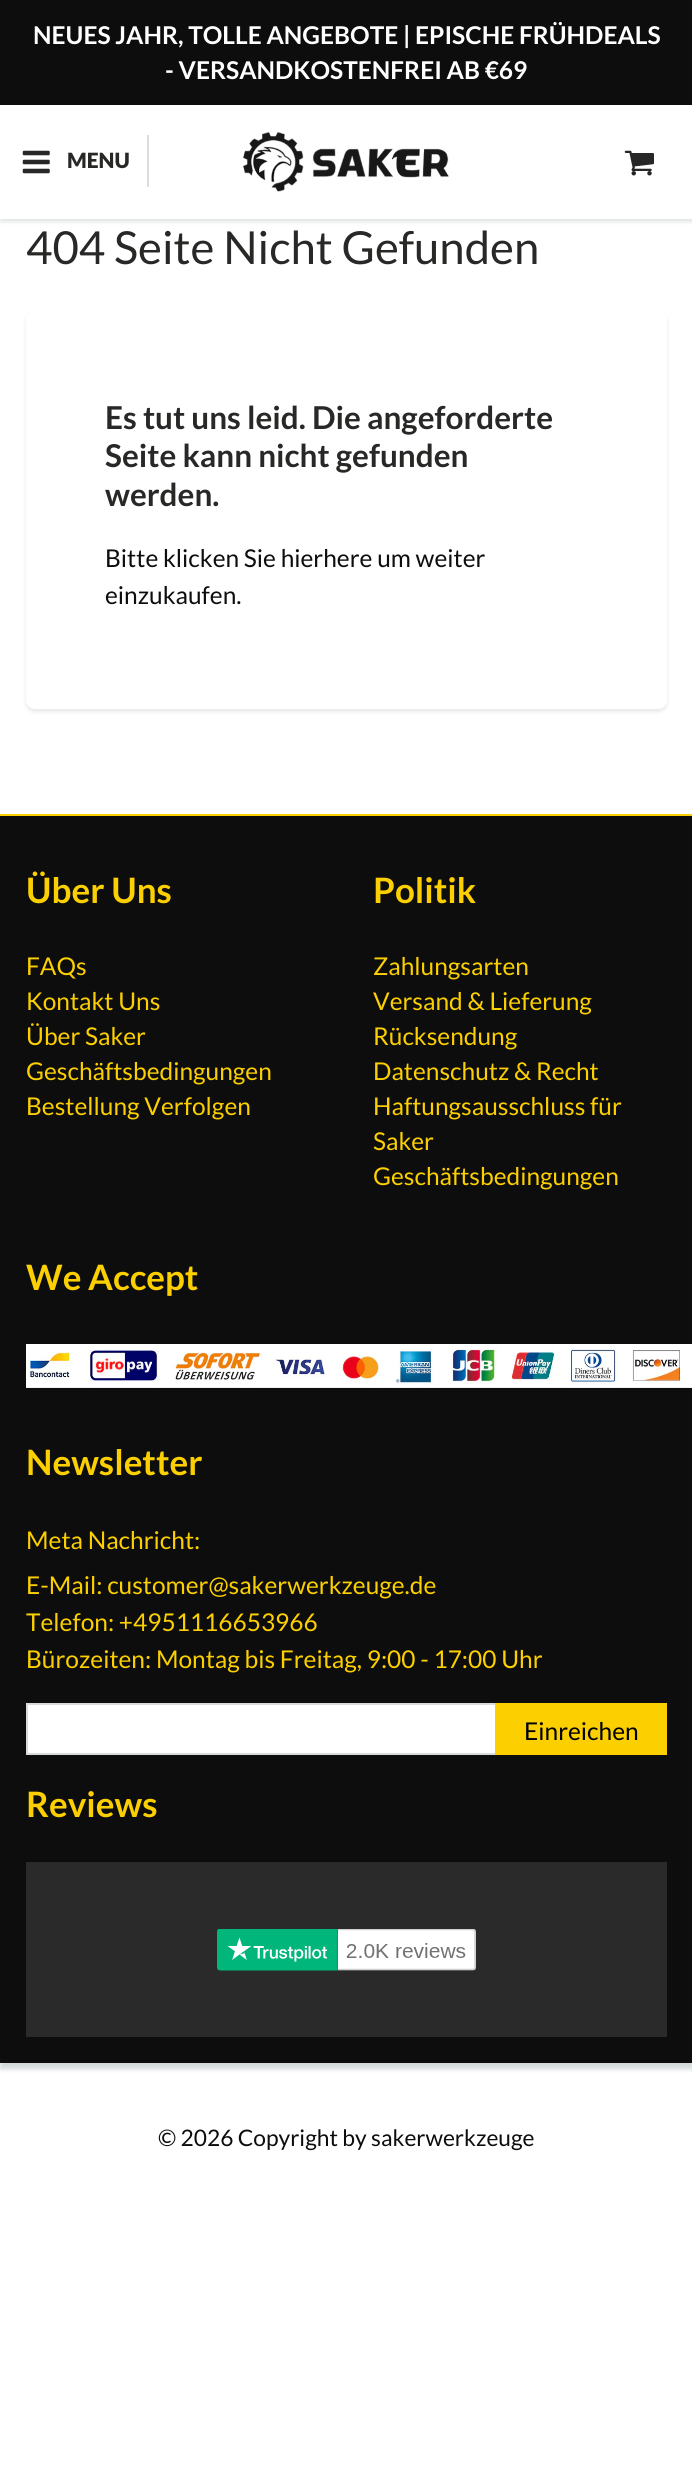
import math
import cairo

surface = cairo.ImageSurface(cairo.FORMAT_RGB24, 692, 2473)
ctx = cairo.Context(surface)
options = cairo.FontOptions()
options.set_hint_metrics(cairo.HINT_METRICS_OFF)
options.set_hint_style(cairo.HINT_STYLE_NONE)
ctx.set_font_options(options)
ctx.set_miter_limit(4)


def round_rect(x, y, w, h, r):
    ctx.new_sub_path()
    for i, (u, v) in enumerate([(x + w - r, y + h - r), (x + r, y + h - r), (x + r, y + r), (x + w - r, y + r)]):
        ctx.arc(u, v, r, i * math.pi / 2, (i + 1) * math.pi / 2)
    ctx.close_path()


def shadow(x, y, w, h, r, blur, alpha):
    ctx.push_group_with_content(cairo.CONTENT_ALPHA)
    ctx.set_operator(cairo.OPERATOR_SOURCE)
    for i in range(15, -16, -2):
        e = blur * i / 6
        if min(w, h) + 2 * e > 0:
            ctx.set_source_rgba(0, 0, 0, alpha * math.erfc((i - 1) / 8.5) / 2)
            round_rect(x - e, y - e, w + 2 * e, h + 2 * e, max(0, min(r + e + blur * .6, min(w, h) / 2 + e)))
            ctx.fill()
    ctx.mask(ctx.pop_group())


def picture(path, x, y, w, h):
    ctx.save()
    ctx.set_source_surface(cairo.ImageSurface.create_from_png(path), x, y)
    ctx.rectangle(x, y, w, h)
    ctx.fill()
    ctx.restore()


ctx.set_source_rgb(1, 1, 1)
ctx.paint()
ctx.set_source_rgb(0.051, 0.051, 0.051)
ctx.rectangle(0, 0, 692, 105)
ctx.fill()
ctx.select_font_face("Lato", cairo.FONT_SLANT_NORMAL, cairo.FONT_WEIGHT_BOLD)
ctx.set_font_size(24.5)
ctx.set_source_rgb(1, 1, 1)
ctx.move_to(33, 44)
ctx.show_text("NEUES JAHR, TOLLE ANGEBOTE | EPISCHE FRÜHDEALS")
ctx.move_to(165, 79)
ctx.show_text("- VERSANDKOSTENFREI AB €69")
ctx.set_source_rgb(0.043, 0.098, 0.11)
shadow(0, 109, 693, 113, 0, 2, 0.12)
ctx.set_source_rgb(1, 1, 1)
ctx.rectangle(0, 106, 692, 113)
ctx.fill()
picture("img1.png", 22, 150, 28, 24)
ctx.set_source_rgb(0.867, 0.867, 0.867)
ctx.rectangle(147, 135, 2, 52)
ctx.fill()
ctx.select_font_face("Lato Black")
ctx.set_font_size(21)
ctx.set_source_rgb(0.157, 0.157, 0.153)
ctx.move_to(67, 168)
ctx.show_text("MENU")
picture("img2.png", 243, 132, 206, 60)
picture("img3.png", 624, 150, 30, 26)
ctx.select_font_face("Lato")
ctx.set_font_size(45.5)
ctx.move_to(26, 264)
ctx.show_text("404 Seite Nicht Gefunden")
ctx.set_source_rgb(0.043, 0.098, 0.11)
shadow(26, 313, 641, 399, 9, 2, 0.1)
ctx.set_source_rgb(1, 1, 1)
round_rect(26, 310, 641, 399, 9)
ctx.fill()
ctx.select_font_face("Lato", cairo.FONT_SLANT_NORMAL, cairo.FONT_WEIGHT_BOLD)
ctx.set_font_size(31.5)
ctx.set_source_rgb(0.157, 0.157, 0.153)
ctx.move_to(105, 429)
ctx.show_text("Es tut uns leid. Die angeforderte")
ctx.move_to(105, 467)
ctx.show_text("Seite kann nicht gefunden")
ctx.move_to(105, 506)
ctx.show_text("werden.")
ctx.select_font_face("Lato")
ctx.set_font_size(24.5)
ctx.set_source_rgb(0.051, 0.051, 0.051)
ctx.move_to(105, 567)
ctx.show_text("Bitte klicken Sie hierhere um weiter")
ctx.move_to(105, 604)
ctx.show_text("einzukaufen.")
ctx.set_source_rgb(0.82, 0.843, 0.843)
shadow(0, 819, 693, 1250, 0, 2.5, 1)
ctx.set_source_rgb(0.051, 0.051, 0.051)
ctx.rectangle(0, 816, 692, 1247)
ctx.fill()
ctx.set_source_rgb(0.984, 0.812, 0)
ctx.rectangle(0, 814, 692, 2)
ctx.fill()
ctx.select_font_face("Lato", cairo.FONT_SLANT_NORMAL, cairo.FONT_WEIGHT_BOLD)
ctx.set_font_size(35)
ctx.move_to(26, 903)
ctx.show_text("Über Uns")
ctx.select_font_face("Lato")
ctx.set_font_size(24.5)
ctx.move_to(26, 975)
ctx.show_text("FAQs")
ctx.move_to(26, 1010)
ctx.show_text("Kontakt Uns")
ctx.move_to(26, 1045)
ctx.show_text("Über Saker")
ctx.move_to(26, 1080)
ctx.show_text("Geschäftsbedingungen")
ctx.move_to(26, 1115)
ctx.show_text("Bestellung Verfolgen")
ctx.select_font_face("Lato", cairo.FONT_SLANT_NORMAL, cairo.FONT_WEIGHT_BOLD)
ctx.set_font_size(35)
ctx.move_to(373, 903)
ctx.show_text("Politik")
ctx.select_font_face("Lato")
ctx.set_font_size(24.5)
ctx.move_to(373, 975)
ctx.show_text("Zahlungsarten")
ctx.move_to(373, 1010)
ctx.show_text("Versand & Lieferung")
ctx.move_to(373, 1045)
ctx.show_text("Rücksendung")
ctx.move_to(373, 1080)
ctx.show_text("Datenschutz & Recht")
ctx.move_to(373, 1115)
ctx.show_text("Haftungsausschluss für")
ctx.move_to(373, 1150)
ctx.show_text("Saker")
ctx.move_to(373, 1185)
ctx.show_text("Geschäftsbedingungen")
ctx.select_font_face("Lato", cairo.FONT_SLANT_NORMAL, cairo.FONT_WEIGHT_BOLD)
ctx.set_font_size(35)
ctx.move_to(26, 1290)
ctx.show_text("We Accept")
picture("img4.png", 26, 1344, 666, 44)
ctx.move_to(26, 1475)
ctx.show_text("Newsletter")
ctx.select_font_face("Lato")
ctx.set_font_size(24.5)
ctx.move_to(26, 1549)
ctx.show_text("Meta Nachricht:")
ctx.move_to(26, 1594)
ctx.show_text("E-Mail: customer@sakerwerkzeuge.de")
ctx.move_to(26, 1631)
ctx.show_text("Telefon: +4951116653966")
ctx.move_to(26, 1668)
ctx.show_text("Bürozeiten: Montag bis Freitag, 9:00 - 17:00 Uhr")
ctx.set_source_rgb(1, 1, 1)
ctx.rectangle(28, 1705, 467, 48)
ctx.fill()
ctx.rectangle(27, 1704, 639, 50)
ctx.set_source_rgb(0.843, 0.859, 0.859)
ctx.stroke()
ctx.set_source_rgb(0.984, 0.812, 0)
ctx.rectangle(495, 1703, 172, 52)
ctx.fill()
ctx.set_source_rgb(0, 0, 0)
ctx.move_to(524, 1740)
ctx.show_text("Einreichen")
ctx.select_font_face("Lato", cairo.FONT_SLANT_NORMAL, cairo.FONT_WEIGHT_BOLD)
ctx.set_font_size(35)
ctx.set_source_rgb(0.984, 0.812, 0)
ctx.move_to(26, 1817)
ctx.show_text("Reviews")
ctx.set_source_rgb(0.165, 0.165, 0.165)
ctx.rectangle(26, 1862, 641, 175)
ctx.fill()
picture("img5.png", 217, 1929, 259, 42)
ctx.select_font_face("Lato")
ctx.set_font_size(22.75)
ctx.set_source_rgb(0.051, 0.051, 0.051)
ctx.move_to(158, 2146)
ctx.show_text("© 2026 Copyright by sakerwerkzeuge")
surface.write_to_png("page.png")
